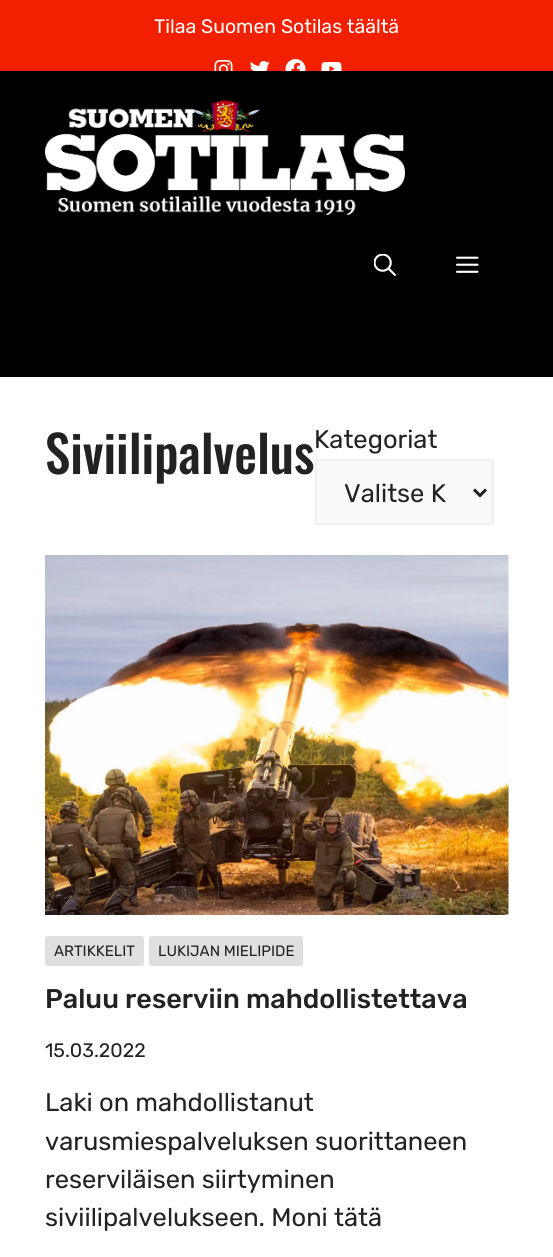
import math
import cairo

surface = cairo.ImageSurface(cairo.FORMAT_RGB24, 553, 1257)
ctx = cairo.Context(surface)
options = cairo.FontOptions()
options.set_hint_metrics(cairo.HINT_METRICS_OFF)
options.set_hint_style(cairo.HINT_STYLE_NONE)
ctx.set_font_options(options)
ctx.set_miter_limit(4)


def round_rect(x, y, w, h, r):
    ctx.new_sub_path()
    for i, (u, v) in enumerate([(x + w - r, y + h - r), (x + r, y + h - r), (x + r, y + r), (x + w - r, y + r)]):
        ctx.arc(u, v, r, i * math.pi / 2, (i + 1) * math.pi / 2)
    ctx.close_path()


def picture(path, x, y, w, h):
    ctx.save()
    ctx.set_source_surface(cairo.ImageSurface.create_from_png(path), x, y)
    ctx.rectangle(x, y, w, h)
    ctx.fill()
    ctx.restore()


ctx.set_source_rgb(1, 1, 1)
ctx.paint()
ctx.set_source_rgb(0.949, 0.125, 0)
ctx.rectangle(0, 0, 553, 71)
ctx.fill()
ctx.select_font_face("Rubik")
ctx.set_font_size(19.5)
ctx.set_source_rgb(1, 1, 1)
ctx.move_to(154, 33)
ctx.show_text("Tilaa Suomen Sotilas täältä")
picture("img1.png", 214, 60, 19, 11)
picture("img2.png", 250, 61, 20, 10)
picture("img3.png", 285, 59, 21, 12)
picture("img4.png", 321, 62, 21, 9)
ctx.set_source_rgb(0, 0, 0)
ctx.rectangle(0, 71, 553, 306)
ctx.fill()
picture("img5.png", 45, 100, 360, 115)
picture("img6.png", 374, 254, 22, 22)
picture("img7.png", 456, 256, 23, 17)
ctx.select_font_face("Oswald Medium")
ctx.set_font_size(51)
ctx.set_source_rgb(0.133, 0.133, 0.133)
ctx.move_to(45, 474)
ctx.show_text("Siviilipalvelus")
ctx.select_font_face("Rubik")
ctx.set_font_size(25.5)
ctx.move_to(314, 448)
ctx.show_text("Kategoriat")
ctx.set_source_rgb(0.969, 0.973, 0.976)
ctx.rectangle(316, 460, 177, 64)
ctx.fill_preserve()
ctx.set_source_rgb(0.941, 0.941, 0.941)
ctx.stroke()
ctx.new_path()
ctx.move_to(474, 489.5)
ctx.line_to(480, 495.5)
ctx.line_to(486, 489.5)
ctx.set_source_rgb(0.133, 0.133, 0.133)
ctx.set_line_width(3)
ctx.stroke()
ctx.move_to(344, 502)
ctx.show_text("Valitse K")
picture("img8.png", 45, 555, 464, 360)
ctx.set_source_rgb(0.875, 0.875, 0.875)
round_rect(45, 936, 99, 30, 3)
ctx.fill()
ctx.set_font_size(15)
ctx.set_source_rgb(0.133, 0.133, 0.133)
ctx.move_to(54, 956)
ctx.show_text("ARTIKKELIT")
ctx.set_source_rgb(0.875, 0.875, 0.875)
round_rect(149, 936, 154, 30, 3)
ctx.fill()
ctx.set_source_rgb(0.133, 0.133, 0.133)
ctx.move_to(158, 956)
ctx.show_text("LUKIJAN MIELIPIDE")
ctx.select_font_face("Rubik Medium")
ctx.set_font_size(27)
ctx.move_to(45, 1008)
ctx.show_text("Paluu reserviin mahdollistettava")
ctx.select_font_face("Rubik")
ctx.set_font_size(19.5)
ctx.move_to(45, 1057)
ctx.show_text("15.03.2022")
ctx.set_font_size(25.5)
ctx.move_to(45, 1111)
ctx.show_text("Laki on mahdollistanut")
ctx.move_to(45, 1150)
ctx.show_text("varusmiespalveluksen suorittaneen")
ctx.move_to(45, 1188)
ctx.show_text("reserviläisen siirtyminen")
ctx.move_to(45, 1226)
ctx.show_text("siviilipalvelukseen. Moni tätä")
surface.write_to_png("page.png")
